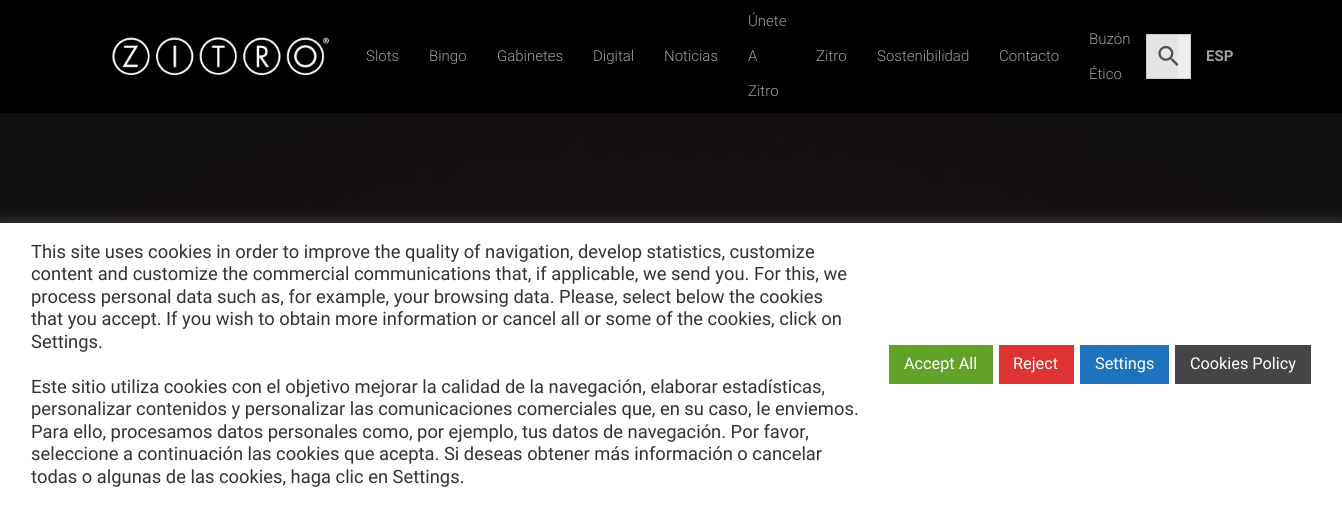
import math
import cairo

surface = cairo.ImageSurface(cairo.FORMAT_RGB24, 1342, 505)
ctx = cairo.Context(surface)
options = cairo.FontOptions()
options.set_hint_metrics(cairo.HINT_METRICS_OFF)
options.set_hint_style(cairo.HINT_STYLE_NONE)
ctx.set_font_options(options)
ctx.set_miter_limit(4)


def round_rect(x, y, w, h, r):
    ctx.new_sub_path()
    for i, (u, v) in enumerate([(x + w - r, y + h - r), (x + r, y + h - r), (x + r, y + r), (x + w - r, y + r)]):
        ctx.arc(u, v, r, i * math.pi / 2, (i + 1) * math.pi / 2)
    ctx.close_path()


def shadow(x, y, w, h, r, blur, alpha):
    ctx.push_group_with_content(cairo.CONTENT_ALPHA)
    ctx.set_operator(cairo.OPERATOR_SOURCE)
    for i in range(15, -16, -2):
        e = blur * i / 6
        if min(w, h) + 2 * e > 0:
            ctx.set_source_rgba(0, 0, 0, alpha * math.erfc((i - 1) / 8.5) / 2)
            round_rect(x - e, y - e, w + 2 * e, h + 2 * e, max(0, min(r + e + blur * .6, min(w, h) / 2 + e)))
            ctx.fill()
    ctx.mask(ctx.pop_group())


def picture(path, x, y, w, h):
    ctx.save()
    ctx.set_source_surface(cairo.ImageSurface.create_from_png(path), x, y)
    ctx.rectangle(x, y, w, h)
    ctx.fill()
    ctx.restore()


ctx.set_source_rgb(0, 0, 0)
ctx.paint()
picture("img1.png", 112, 37, 217, 38)
ctx.select_font_face("Roboto Light")
ctx.set_font_size(15)
ctx.set_source_rgb(0.627, 0.627, 0.627)
ctx.move_to(366, 61)
ctx.show_text("Slots")
ctx.move_to(429, 61)
ctx.show_text("Bingo")
ctx.move_to(497, 61)
ctx.show_text("Gabinetes")
ctx.move_to(593, 61)
ctx.show_text("Digital")
ctx.move_to(664, 61)
ctx.show_text("Noticias")
ctx.move_to(748, 26)
ctx.show_text("Únete")
ctx.move_to(748, 61)
ctx.show_text("A")
ctx.move_to(748, 96)
ctx.show_text("Zitro")
ctx.move_to(816, 61)
ctx.show_text("Zitro")
ctx.move_to(877, 61)
ctx.show_text("Sostenibilidad")
ctx.move_to(999, 61)
ctx.show_text("Contacto")
ctx.move_to(1089, 44)
ctx.show_text("Buzón")
ctx.move_to(1089, 79)
ctx.show_text("Ético")
ctx.set_source_rgb(0.929, 0.929, 0.929)
ctx.rectangle(1146.5, 34.5, 44, 44)
ctx.fill_preserve()
ctx.set_source_rgb(0.8, 0.8, 0.8)
ctx.set_line_width(1)
ctx.stroke()
picture("img2.png", 1158, 45, 21, 21)
ctx.set_source_rgba(0, 0, 0, 0.04)
ctx.rectangle(1147, 35, 31, 43)
ctx.fill()
ctx.select_font_face("Roboto", cairo.FONT_SLANT_NORMAL, cairo.FONT_WEIGHT_BOLD)
ctx.set_source_rgb(0.627, 0.627, 0.627)
ctx.move_to(1206, 61)
ctx.show_text("ESP")
picture("img3.png", 0, 113, 1342, 110)
ctx.set_source_rgb(0.675, 0.671, 0.671)
shadow(0, 221, 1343, 283, 0, 6, 0.3)
ctx.set_source_rgb(1, 1, 1)
ctx.rectangle(0, 223, 1342, 282)
ctx.fill()
ctx.select_font_face("Roboto")
ctx.set_font_size(18.35)
ctx.set_source_rgb(0.2, 0.2, 0.2)
ctx.move_to(31, 258)
ctx.show_text("This site uses cookies in order to improve the quality of navigation, develop statistics, customize")
ctx.move_to(31, 280)
ctx.show_text("content and customize the commercial communications that, if applicable, we send you. For this, we")
ctx.move_to(31, 303)
ctx.show_text("process personal data such as, for example, your browsing data. Please, select below the cookies")
ctx.move_to(31, 325)
ctx.show_text("that you accept. If you wish to obtain more information or cancel all or some of the cookies, click on")
ctx.move_to(31, 348)
ctx.show_text("Settings.")
ctx.move_to(31, 393)
ctx.show_text("Este sitio utiliza cookies con el objetivo mejorar la calidad de la navegación, elaborar estadísticas,")
ctx.move_to(31, 415)
ctx.show_text("personalizar contenidos y personalizar las comunicaciones comerciales que, en su caso, le enviemos.")
ctx.move_to(31, 438)
ctx.show_text("Para ello, procesamos datos personales como, por ejemplo, tus datos de navegación. Por favor,")
ctx.move_to(31, 460)
ctx.show_text("seleccione a continuación las cookies que acepta. Si deseas obtener más información o cancelar")
ctx.move_to(31, 483)
ctx.show_text("todas o algunas de las cookies, haga clic en Settings.")
ctx.set_source_rgb(0.38, 0.635, 0.161)
ctx.rectangle(889, 345, 104, 39)
ctx.fill()
ctx.set_font_size(16.25)
ctx.set_source_rgb(1, 1, 1)
ctx.move_to(904, 369)
ctx.show_text("Accept All")
ctx.set_source_rgb(0.867, 0.2, 0.2)
ctx.rectangle(999, 345, 75, 39)
ctx.fill()
ctx.set_source_rgb(1, 1, 1)
ctx.move_to(1013, 369)
ctx.show_text("Reject")
ctx.set_source_rgb(0.118, 0.451, 0.745)
ctx.rectangle(1080, 345, 89, 39)
ctx.fill()
ctx.set_source_rgb(1, 1, 1)
ctx.move_to(1095, 369)
ctx.show_text("Settings")
ctx.set_source_rgb(0.271, 0.271, 0.271)
ctx.rectangle(1175, 345, 136, 39)
ctx.fill()
ctx.set_source_rgb(1, 1, 1)
ctx.move_to(1190, 369)
ctx.show_text("Cookies Policy")
surface.write_to_png("page.png")
